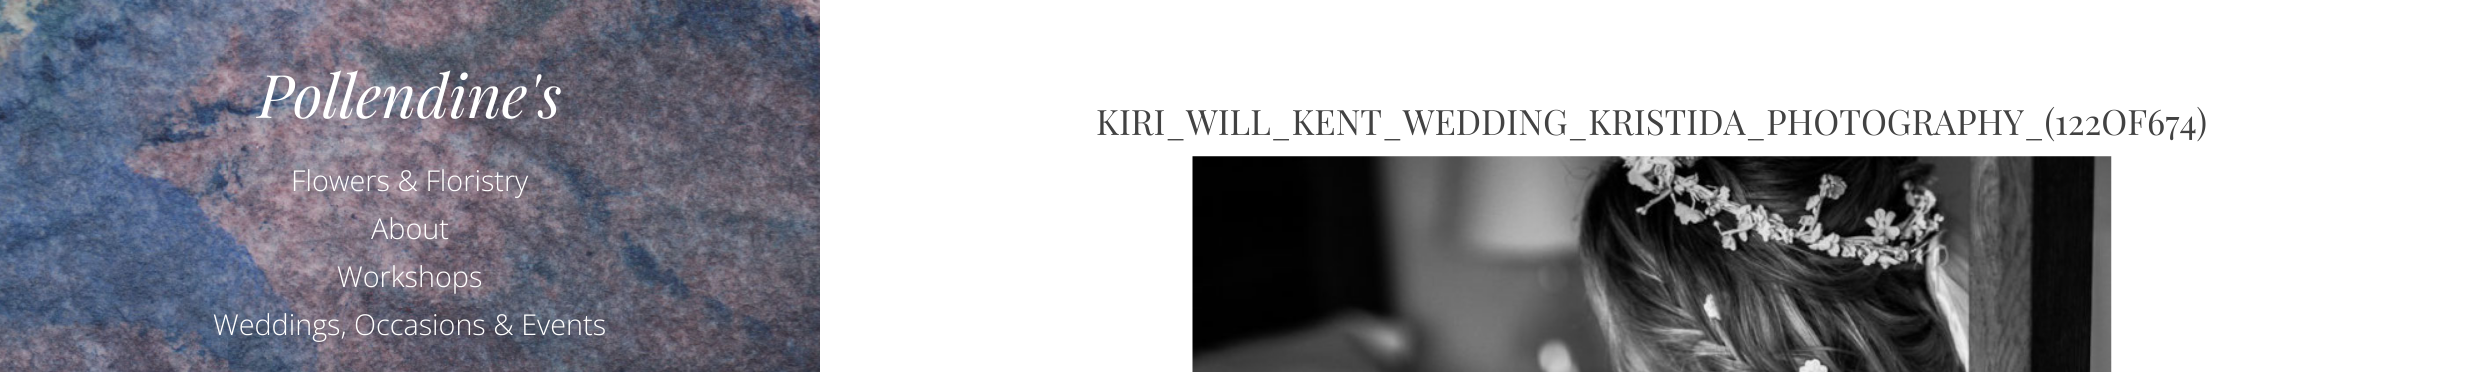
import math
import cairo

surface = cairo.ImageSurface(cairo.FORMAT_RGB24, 2483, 372)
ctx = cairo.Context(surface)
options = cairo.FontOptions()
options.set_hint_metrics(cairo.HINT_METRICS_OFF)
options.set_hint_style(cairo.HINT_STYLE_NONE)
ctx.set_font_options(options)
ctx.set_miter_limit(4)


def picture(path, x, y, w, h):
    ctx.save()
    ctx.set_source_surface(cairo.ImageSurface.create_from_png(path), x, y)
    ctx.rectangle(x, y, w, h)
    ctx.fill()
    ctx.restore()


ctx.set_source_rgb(1, 1, 1)
ctx.paint()
picture("img1.png", 0, 0, 820, 372)
ctx.select_font_face("Playfair Display", cairo.FONT_SLANT_ITALIC)
ctx.set_font_size(60)
ctx.set_source_rgb(1, 1, 1)
ctx.move_to(258, 118)
ctx.show_text("Pollendine's")
ctx.select_font_face("Open Sans Light")
ctx.set_font_size(28.75)
ctx.move_to(291, 191)
ctx.show_text("Flowers & Floristry")
ctx.move_to(371, 239)
ctx.show_text("About")
ctx.move_to(337, 287)
ctx.show_text("Workshops")
ctx.move_to(213, 335)
ctx.show_text("Weddings, Occasions & Events")
ctx.select_font_face("Playfair Display")
ctx.set_font_size(35)
ctx.set_source_rgb(0.259, 0.259, 0.259)
ctx.move_to(1096, 135)
ctx.show_text("KIRI_WILL_KENT_WEDDING_KRISTIDA_PHOTOGRAPHY_(122OF674)")
picture("img2.png", 1192, 156, 920, 216)
surface.write_to_png("page.png")
